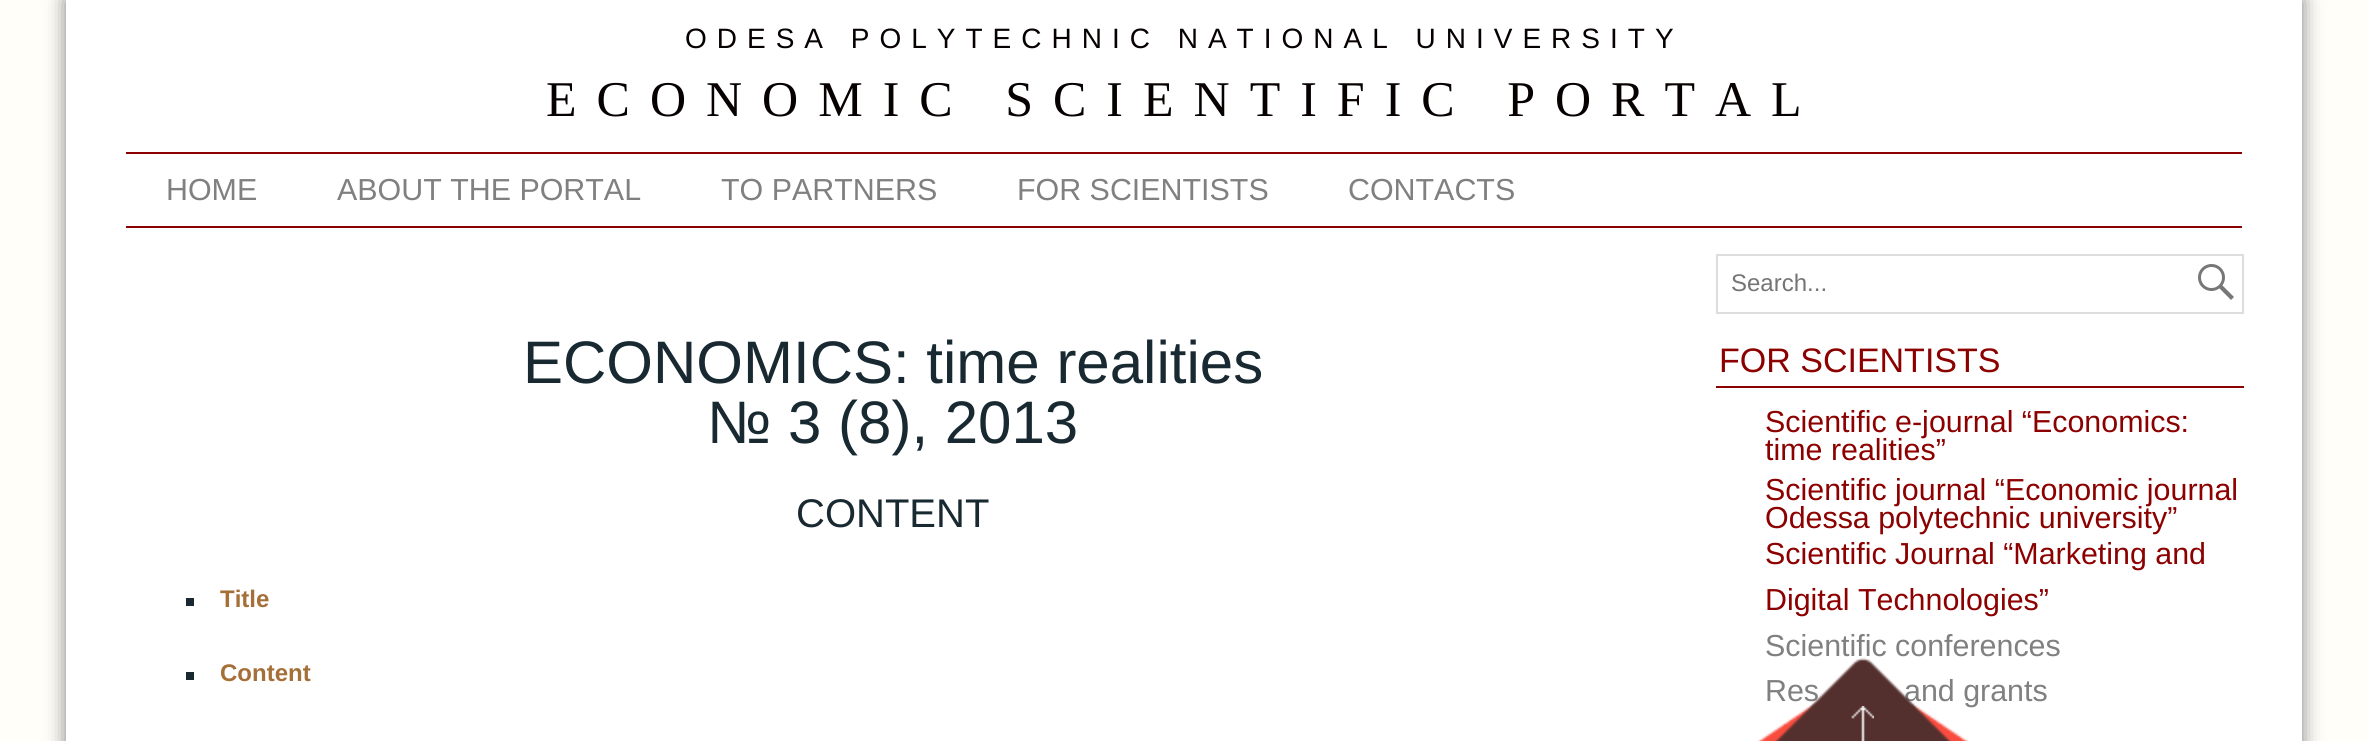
import math
import cairo

surface = cairo.ImageSurface(cairo.FORMAT_RGB24, 2368, 741)
ctx = cairo.Context(surface)
options = cairo.FontOptions()
options.set_hint_metrics(cairo.HINT_METRICS_OFF)
options.set_hint_style(cairo.HINT_STYLE_NONE)
ctx.set_font_options(options)
ctx.set_miter_limit(4)


def spaced_text(x, y, s, letter, word):
    ctx.move_to(x, y)
    for ch in s:
        ctx.show_text(ch)
        ctx.rel_move_to(letter + word * (ch == ' '), 0)


def round_rect(x, y, w, h, r):
    ctx.new_sub_path()
    for i, (u, v) in enumerate([(x + w - r, y + h - r), (x + r, y + h - r), (x + r, y + r), (x + w - r, y + r)]):
        ctx.arc(u, v, r, i * math.pi / 2, (i + 1) * math.pi / 2)
    ctx.close_path()


def shadow(x, y, w, h, r, blur, alpha):
    ctx.push_group_with_content(cairo.CONTENT_ALPHA)
    ctx.set_operator(cairo.OPERATOR_SOURCE)
    for i in range(15, -16, -2):
        e = blur * i / 6
        if min(w, h) + 2 * e > 0:
            ctx.set_source_rgba(0, 0, 0, alpha * math.erfc((i - 1) / 8.5) / 2)
            round_rect(x - e, y - e, w + 2 * e, h + 2 * e, max(0, min(r + e + blur * .6, min(w, h) / 2 + e)))
            ctx.fill()
    ctx.mask(ctx.pop_group())


def picture(path, x, y, w, h):
    ctx.save()
    ctx.set_source_surface(cairo.ImageSurface.create_from_png(path), x, y)
    ctx.rectangle(x, y, w, h)
    ctx.fill()
    ctx.restore()


ctx.set_source_rgb(1, 0.996, 0.976)
ctx.paint()
ctx.set_source_rgb(0, 0, 0)
shadow(66, 0, 2236, 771, 0, 10, 0.5)
ctx.set_source_rgb(1, 1, 1)
ctx.rectangle(66, 0, 2236, 741)
ctx.fill()
ctx.select_font_face("Liberation Sans")
ctx.set_font_size(28)
ctx.set_source_rgb(0.027, 0, 0)
spaced_text(685, 48, "ODESА POLYTECHNIC NATIONAL UNIVERSITY", 10, 0)
ctx.select_font_face("Liberation Serif")
ctx.set_font_size(50)
spaced_text(546, 116, "ECONOMIC SCIENTIFIC PORTAL", 20, 0)
ctx.set_source_rgb(0.549, 0, 0)
ctx.rectangle(126, 152, 2116, 2)
ctx.fill()
ctx.rectangle(126, 226, 2116, 2)
ctx.fill()
ctx.select_font_face("Liberation Sans")
ctx.set_font_size(30.4)
ctx.set_source_rgb(0.502, 0.502, 0.502)
ctx.move_to(166, 200)
ctx.show_text("HOME")
ctx.move_to(337, 200)
ctx.show_text("ABOUT THE PORTAL")
ctx.move_to(721, 200)
ctx.show_text("TO PARTNERS")
ctx.move_to(1017, 200)
ctx.show_text("FOR SCIENTISTS")
ctx.move_to(1348, 200)
ctx.show_text("CONTACTS")
ctx.set_font_size(60)
ctx.set_source_rgb(0.094, 0.161, 0.196)
ctx.move_to(523, 383)
ctx.show_text("ECONOMICS: time realities")
ctx.move_to(707, 443)
ctx.show_text("№ 3 (8), 2013")
ctx.set_font_size(40)
ctx.move_to(796, 527)
ctx.show_text("CONTENT")
ctx.rectangle(186, 598, 8, 8)
ctx.fill()
ctx.select_font_face("Liberation Sans", cairo.FONT_SLANT_NORMAL, cairo.FONT_WEIGHT_BOLD)
ctx.set_font_size(24)
ctx.set_source_rgb(0.647, 0.435, 0.22)
ctx.move_to(220, 607)
ctx.show_text("Title")
ctx.set_source_rgb(0.094, 0.161, 0.196)
ctx.rectangle(186, 672, 8, 8)
ctx.fill()
ctx.set_source_rgb(0.647, 0.435, 0.22)
ctx.move_to(220, 681)
ctx.show_text("Content")
ctx.rectangle(1717, 255, 526, 58)
ctx.set_source_rgb(0.867, 0.867, 0.867)
ctx.stroke()
ctx.select_font_face("Liberation Sans")
ctx.set_source_rgb(0.459, 0.459, 0.459)
ctx.move_to(1731, 291)
ctx.show_text("Search...")
picture("img1.png", 2198, 264, 36, 36)
ctx.set_source_rgb(0.549, 0, 0)
ctx.rectangle(1716, 386, 528, 2)
ctx.fill()
ctx.set_font_size(34)
ctx.move_to(1719, 372)
ctx.show_text("FOR SCIENTISTS")
ctx.set_font_size(30.4)
ctx.move_to(1765, 432)
ctx.show_text("Scientific e-journal “Economics:")
ctx.move_to(1765, 460)
ctx.show_text("time realities”")
ctx.move_to(1765, 500)
ctx.show_text("Scientific journal “Economic journal")
ctx.move_to(1765, 528)
ctx.show_text("Odessa polytechnic university”")
ctx.move_to(1765, 564)
ctx.show_text("Scientific Journal “Marketing and")
ctx.move_to(1765, 610)
ctx.show_text("Digital Technologies”")
ctx.set_source_rgb(0.502, 0.502, 0.502)
ctx.move_to(1765, 656)
ctx.show_text("Scientific conferences")
ctx.move_to(1765, 701)
ctx.show_text("Res")
ctx.move_to(1904, 701)
ctx.show_text("and grants")
picture("img2.png", 1758, 658, 210, 83)
picture("img3.png", 1851, 706, 23, 35)
surface.write_to_png("page.png")
